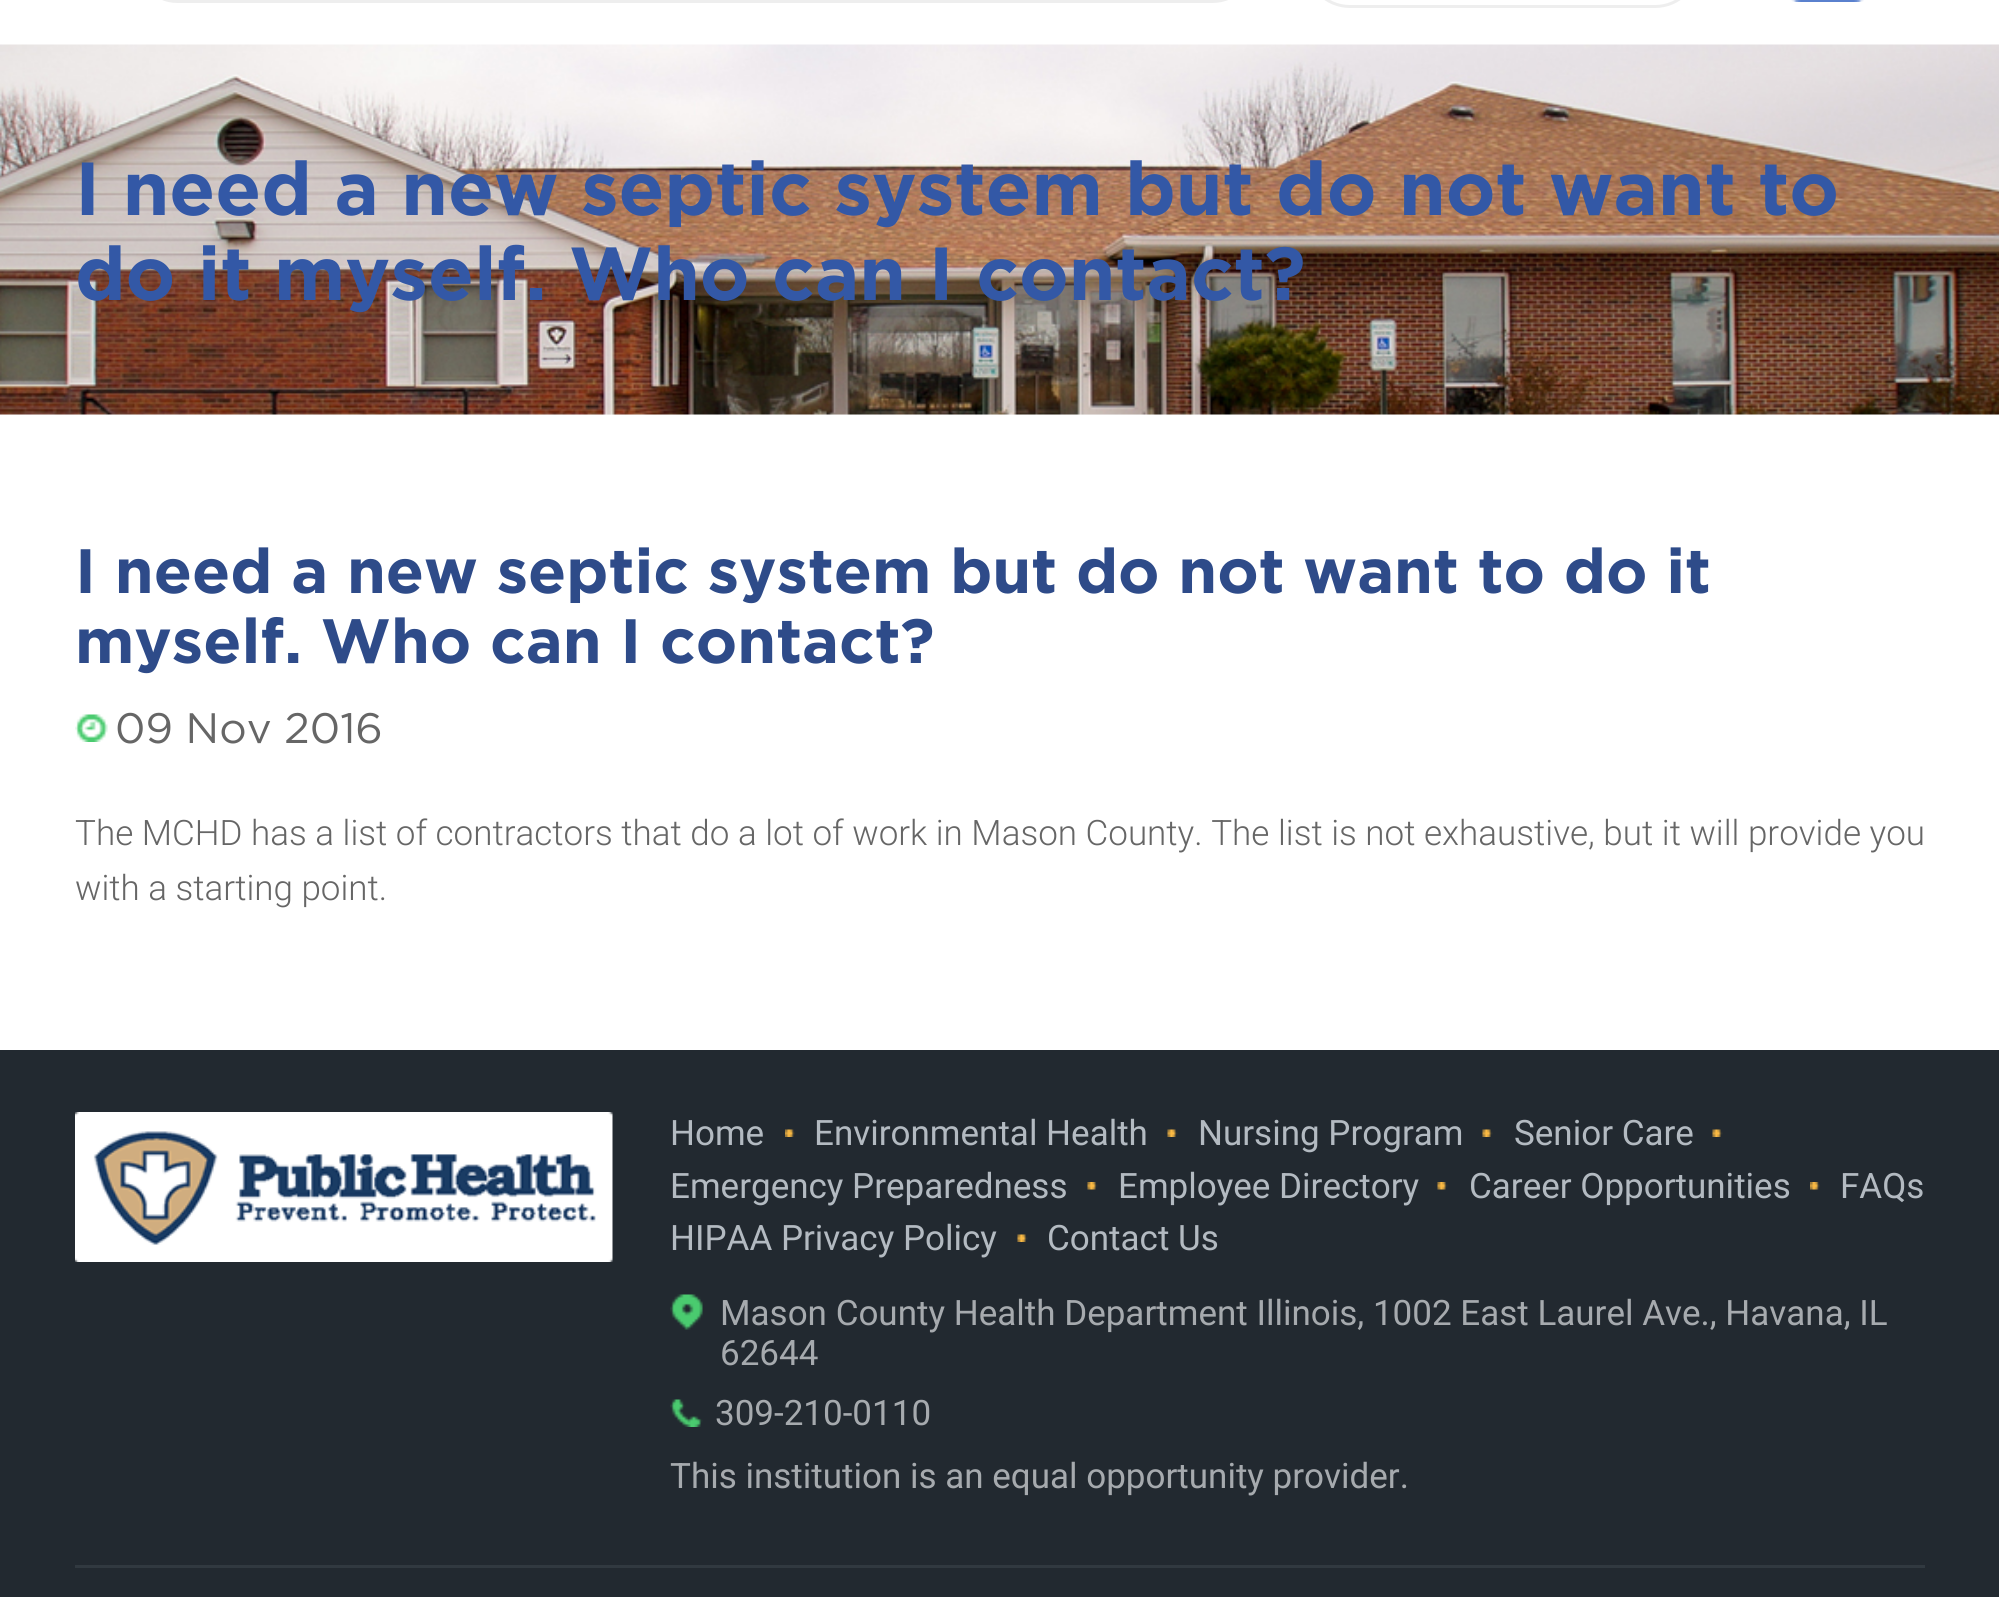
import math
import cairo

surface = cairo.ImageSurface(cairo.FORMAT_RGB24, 1999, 1597)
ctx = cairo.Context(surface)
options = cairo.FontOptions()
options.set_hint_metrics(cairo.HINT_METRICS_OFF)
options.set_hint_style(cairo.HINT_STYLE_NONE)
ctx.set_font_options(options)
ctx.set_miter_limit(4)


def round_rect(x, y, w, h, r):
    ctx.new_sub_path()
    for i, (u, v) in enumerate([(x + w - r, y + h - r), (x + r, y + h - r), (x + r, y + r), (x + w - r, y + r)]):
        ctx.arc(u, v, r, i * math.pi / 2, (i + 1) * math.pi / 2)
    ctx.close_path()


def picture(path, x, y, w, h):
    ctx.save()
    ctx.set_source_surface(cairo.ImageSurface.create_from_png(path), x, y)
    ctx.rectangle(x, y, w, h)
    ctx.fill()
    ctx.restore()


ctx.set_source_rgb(0.961, 0.961, 0.961)
ctx.paint()
ctx.set_source_rgb(1, 1, 1)
ctx.rectangle(0, 0, 1999, 45)
ctx.fill()
round_rect(136.5, -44.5, 1117, 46, 41)
ctx.set_source_rgb(0.933, 0.933, 0.933)
ctx.set_line_width(3)
ctx.stroke()
round_rect(1306.5, -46.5, 392, 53, 43.5)
ctx.stroke()
picture("img1.png", 1791, 0, 73, 2)
picture("img2.png", 0, 44, 1999, 371)
ctx.select_font_face("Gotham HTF", cairo.FONT_SLANT_NORMAL, cairo.FONT_WEIGHT_BOLD)
ctx.set_font_size(75)
ctx.set_source_rgb(0.2, 0.345, 0.651)
ctx.move_to(75, 215)
ctx.show_text("I need a new septic system but do not want to")
ctx.move_to(75, 300)
ctx.show_text("do it myself. Who can I contact?")
ctx.set_source_rgb(1, 1, 1)
ctx.rectangle(0, 415, 1999, 635)
ctx.fill()
ctx.set_font_size(62.5)
ctx.set_source_rgb(0.18, 0.294, 0.537)
ctx.move_to(75, 593)
ctx.show_text("I need a new septic system but do not want to do it")
ctx.move_to(75, 663)
ctx.show_text("myself. Who can I contact?")
picture("img3.png", 75, 714, 33, 28)
ctx.select_font_face("Gotham HTF")
ctx.set_font_size(42.5)
ctx.set_source_rgb(0.4, 0.4, 0.4)
ctx.move_to(115, 743)
ctx.show_text("09 Nov 2016")
ctx.select_font_face("Roboto Light")
ctx.set_font_size(35)
ctx.move_to(75, 845)
ctx.show_text("The MCHD has a list of contractors that do a lot of work in Mason County. The list is not exhaustive, but it will provide you")
ctx.move_to(75, 900)
ctx.show_text("with a starting point.")
ctx.set_source_rgb(0.133, 0.161, 0.188)
ctx.rectangle(0, 1050, 1999, 547)
ctx.fill()
ctx.set_source_rgb(0.192, 0.224, 0.251)
ctx.rectangle(75, 1565, 1850, 3)
ctx.fill()
picture("img4.png", 75, 1112, 538, 150)
ctx.select_font_face("Roboto")
ctx.set_source_rgb(0.702, 0.729, 0.757)
ctx.move_to(670, 1145)
ctx.show_text("Home")
picture("img5.png", 785, 1129, 10, 8)
ctx.move_to(814, 1145)
ctx.show_text("Environmental Health")
picture("img6.png", 1167, 1129, 11, 8)
ctx.move_to(1198, 1145)
ctx.show_text("Nursing Program")
picture("img7.png", 1482, 1129, 11, 8)
ctx.move_to(1514, 1145)
ctx.show_text("Senior Care")
picture("img7.png", 1712, 1129, 11, 8)
ctx.move_to(670, 1198)
ctx.show_text("Emergency Preparedness")
picture("img8.png", 1087, 1182, 11, 8)
ctx.move_to(1118, 1198)
ctx.show_text("Employee Directory")
picture("img9.png", 1437, 1182, 11, 8)
ctx.move_to(1469, 1198)
ctx.show_text("Career Opportunities")
picture("img10.png", 1810, 1182, 10, 8)
ctx.move_to(1840, 1198)
ctx.show_text("FAQs")
ctx.move_to(670, 1250)
ctx.show_text("HIPAA Privacy Policy")
picture("img7.png", 1017, 1234, 11, 8)
ctx.move_to(1047, 1250)
ctx.show_text("Contact Us")
picture("img11.png", 670, 1294, 33, 36)
ctx.set_source_rgb(0.651, 0.667, 0.682)
ctx.move_to(720, 1325)
ctx.show_text("Mason County Health Department Illinois, 1002 East Laurel Ave., Havana, IL")
ctx.move_to(720, 1365)
ctx.show_text("62644")
picture("img12.png", 670, 1399, 33, 28)
ctx.move_to(715, 1425)
ctx.show_text("309-210-0110")
ctx.move_to(670, 1488)
ctx.show_text("This institution is an equal opportunity provider.")
surface.write_to_png("page.png")
